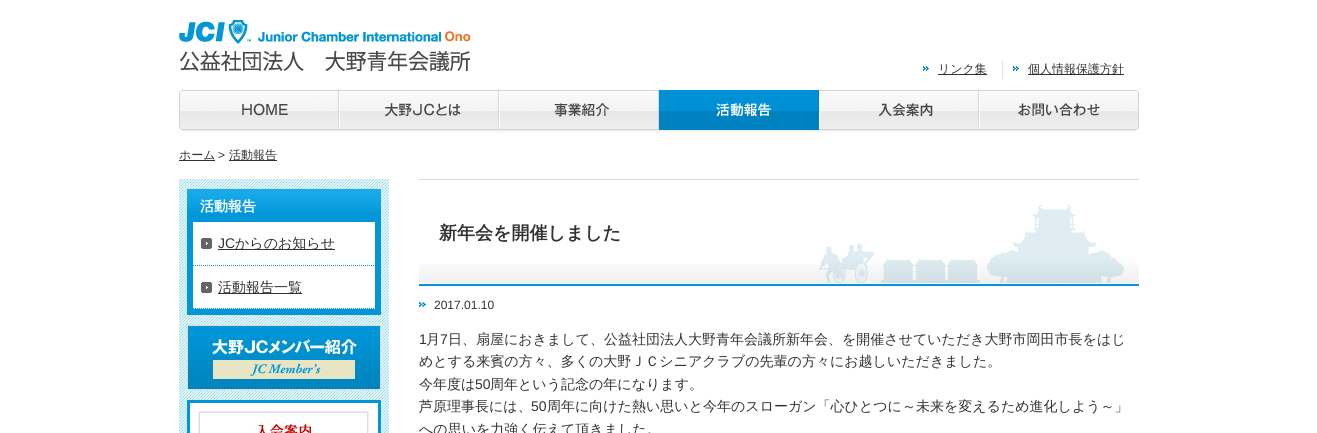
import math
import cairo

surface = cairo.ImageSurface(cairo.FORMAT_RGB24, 1317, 433)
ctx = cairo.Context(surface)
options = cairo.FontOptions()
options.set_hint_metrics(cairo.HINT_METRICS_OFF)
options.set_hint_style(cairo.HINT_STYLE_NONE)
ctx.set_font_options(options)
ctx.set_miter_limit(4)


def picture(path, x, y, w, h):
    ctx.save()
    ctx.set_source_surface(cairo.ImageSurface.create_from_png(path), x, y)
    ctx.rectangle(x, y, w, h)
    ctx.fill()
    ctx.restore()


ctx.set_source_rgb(1, 1, 1)
ctx.paint()
picture("img1.png", 179, 20, 292, 51)
picture("img2.png", 923, 66, 6, 5)
ctx.set_source_rgb(0.898, 0.898, 0.898)
ctx.rectangle(1002, 60, 1, 19)
ctx.fill()
ctx.set_source_rgb(0.196, 0.196, 0.196)
ctx.rectangle(938, 74, 49, 1)
ctx.fill()
ctx.select_font_face("WenQuanYi Zen Hei Medium")
ctx.set_font_size(12)
ctx.move_to(938, 73)
ctx.show_text("リンク集")
picture("img2.png", 1013, 66, 6, 5)
ctx.rectangle(1028, 74, 96, 1)
ctx.fill()
ctx.move_to(1028, 73)
ctx.show_text("個人情報保護方針")
picture("img3.png", 179, 90, 160, 42)
picture("img4.png", 339, 90, 160, 42)
picture("img5.png", 499, 90, 160, 42)
picture("img6.png", 659, 90, 160, 42)
picture("img7.png", 819, 90, 160, 42)
picture("img8.png", 979, 90, 160, 42)
ctx.rectangle(179, 160, 36, 1)
ctx.fill()
ctx.move_to(179, 159)
ctx.show_text("ホーム")
ctx.select_font_face("Liberation Sans")
ctx.move_to(218, 159)
ctx.show_text(">")
ctx.rectangle(229, 160, 48, 1)
ctx.fill()
ctx.select_font_face("WenQuanYi Zen Hei Medium")
ctx.move_to(229, 159)
ctx.show_text("活動報告")
picture("img9.png", 179, 179, 210, 254)
ctx.set_source_rgb(0, 0.588, 0.843)
ctx.rectangle(187, 213, 194, 9)
ctx.fill()
picture("img10.png", 187, 189, 194, 24)
ctx.select_font_face("WenQuanYi Zen Hei", cairo.FONT_SLANT_NORMAL, cairo.FONT_WEIGHT_BOLD)
ctx.set_font_size(14)
ctx.set_source_rgb(1, 1, 1)
ctx.move_to(200, 211)
ctx.show_text("活動報告")
ctx.rectangle(193, 222, 182, 87)
ctx.fill()
ctx.set_source_rgb(0, 0.588, 0.843)
ctx.rectangle(378, 222, 3, 93)
ctx.fill()
ctx.rectangle(187, 312, 194, 3)
ctx.fill()
ctx.rectangle(187, 222, 3, 93)
ctx.fill()
ctx.rectangle(375, 222, 3, 90)
ctx.fill()
ctx.rectangle(190, 309, 188, 3)
ctx.fill()
ctx.rectangle(190, 222, 3, 90)
ctx.fill()
picture("img11.png", 201, 238, 11, 11)
ctx.new_path()
ctx.move_to(193, 265.5)
ctx.line_to(375, 265.5)
ctx.set_line_width(1)
ctx.set_dash([1, 1])
ctx.stroke()
ctx.select_font_face("Liberation Sans")
ctx.set_source_rgb(0.196, 0.196, 0.196)
ctx.move_to(218, 248)
ctx.show_text("JC")
ctx.rectangle(218, 249, 117, 1)
ctx.fill()
ctx.select_font_face("WenQuanYi Zen Hei Medium")
ctx.move_to(235, 248)
ctx.show_text("からのお知らせ")
picture("img11.png", 201, 282, 11, 11)
ctx.new_path()
ctx.move_to(193, 308.5)
ctx.line_to(375, 308.5)
ctx.set_source_rgb(0, 0.588, 0.843)
ctx.stroke()
ctx.set_source_rgb(0.196, 0.196, 0.196)
ctx.rectangle(218, 293, 84, 1)
ctx.fill()
ctx.move_to(218, 292)
ctx.show_text("活動報告一覧")
picture("img12.png", 187, 325, 194, 65)
picture("img13.png", 187, 400, 194, 33)
picture("img14.png", 419, 264, 720, 19)
ctx.set_source_rgb(0.863, 0.863, 0.863)
ctx.rectangle(419, 179, 720, 1)
ctx.fill()
ctx.set_source_rgb(0, 0.588, 0.843)
ctx.rectangle(419, 284, 720, 2)
ctx.fill()
picture("img15.png", 819, 205, 317, 78)
ctx.select_font_face("WenQuanYi Zen Hei", cairo.FONT_SLANT_NORMAL, cairo.FONT_WEIGHT_BOLD)
ctx.set_font_size(18)
ctx.set_source_rgb(0.196, 0.196, 0.196)
ctx.move_to(439, 239)
ctx.show_text("新年会を開催しました")
picture("img16.png", 419, 302, 7, 5)
ctx.select_font_face("Liberation Sans")
ctx.set_font_size(12)
ctx.move_to(434, 309)
ctx.show_text("2017.01.10")
ctx.set_font_size(14)
ctx.move_to(419, 344)
ctx.show_text("1")
ctx.select_font_face("WenQuanYi Zen Hei Medium")
ctx.move_to(426, 344)
ctx.show_text("月")
ctx.select_font_face("Liberation Sans")
ctx.move_to(440, 344)
ctx.show_text("7")
ctx.select_font_face("WenQuanYi Zen Hei Medium")
ctx.move_to(448, 344)
ctx.show_text("日、扇屋におきまして、公益社団法人大野青年会議所新年会、を開催させていただき大野市岡田市長をはじ")
ctx.move_to(419, 366)
ctx.show_text("めとする来賓の方々、多くの大野ＪＣシニアクラブの先輩の方々にお越しいただきました。")
ctx.move_to(419, 389)
ctx.show_text("今年度は")
ctx.select_font_face("Liberation Sans")
ctx.move_to(475, 389)
ctx.show_text("50")
ctx.select_font_face("WenQuanYi Zen Hei Medium")
ctx.move_to(490, 389)
ctx.show_text("周年という記念の年になります。")
ctx.move_to(419, 411)
ctx.show_text("芦原理事長には、")
ctx.select_font_face("Liberation Sans")
ctx.move_to(531, 411)
ctx.show_text("50")
ctx.select_font_face("WenQuanYi Zen Hei Medium")
ctx.move_to(547, 411)
ctx.show_text("周年に向けた熱い思いと今年のスローガン「心ひとつに～未来を変えるため進化しよう～」")
ctx.move_to(419, 434)
ctx.show_text("への思いを力強く伝えて頂きました。")
surface.write_to_png("page.png")
